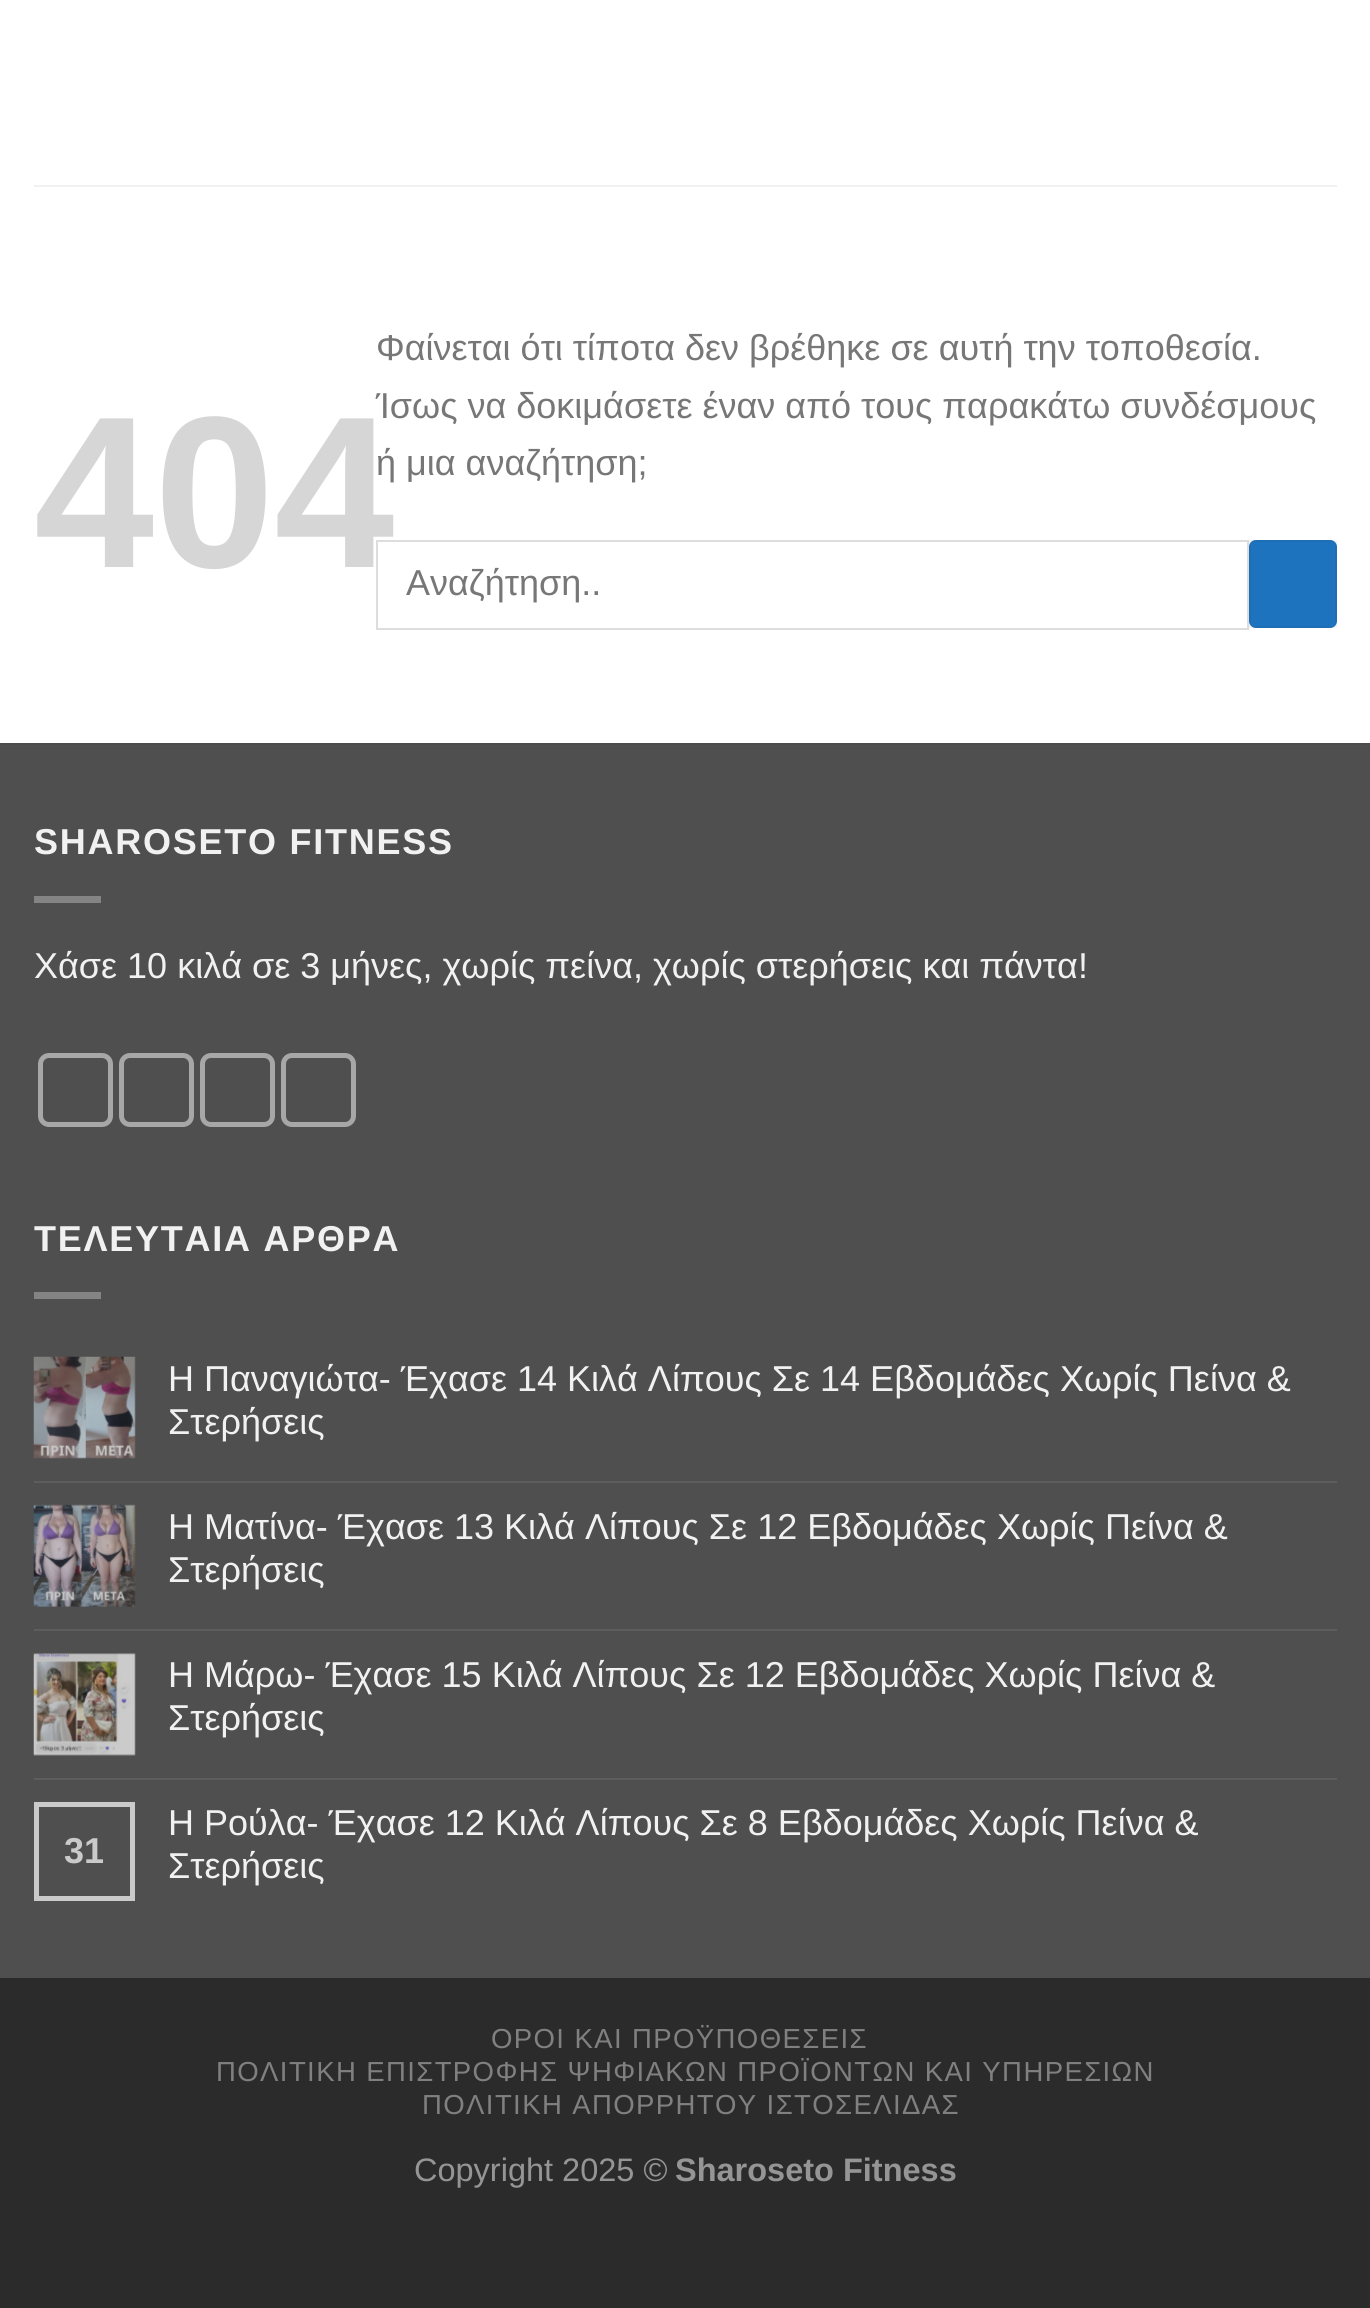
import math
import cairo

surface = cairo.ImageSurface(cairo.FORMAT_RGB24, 1370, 2308)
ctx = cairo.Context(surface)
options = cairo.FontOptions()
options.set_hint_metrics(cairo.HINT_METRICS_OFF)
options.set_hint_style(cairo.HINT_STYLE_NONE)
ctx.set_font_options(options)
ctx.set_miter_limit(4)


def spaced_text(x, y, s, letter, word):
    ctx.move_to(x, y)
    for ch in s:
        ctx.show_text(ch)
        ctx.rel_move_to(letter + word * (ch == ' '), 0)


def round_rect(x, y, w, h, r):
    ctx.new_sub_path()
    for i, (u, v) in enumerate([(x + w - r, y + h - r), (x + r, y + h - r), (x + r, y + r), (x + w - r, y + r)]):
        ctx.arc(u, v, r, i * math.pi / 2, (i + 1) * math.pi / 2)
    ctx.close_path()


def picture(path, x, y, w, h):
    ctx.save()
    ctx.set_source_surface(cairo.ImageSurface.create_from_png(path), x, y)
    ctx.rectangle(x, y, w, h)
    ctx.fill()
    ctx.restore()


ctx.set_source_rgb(0.169, 0.169, 0.169)
ctx.paint()
ctx.set_source_rgb(1, 1, 1)
ctx.rectangle(0, 0, 1370, 743)
ctx.fill()
ctx.set_source_rgb(0.945, 0.945, 0.945)
ctx.rectangle(34, 185, 1303, 2)
ctx.fill()
ctx.select_font_face("Liberation Sans", cairo.FONT_SLANT_NORMAL, cairo.FONT_WEIGHT_BOLD)
ctx.set_font_size(216)
ctx.set_source_rgb(0.839, 0.839, 0.839)
ctx.move_to(34, 567)
ctx.show_text("404")
ctx.select_font_face("Liberation Sans")
ctx.set_font_size(36)
ctx.set_source_rgb(0.467, 0.467, 0.467)
ctx.move_to(376, 360)
ctx.show_text("Φαίνεται ότι τίποτα δεν βρέθηκε σε αυτή την τοποθεσία.")
ctx.move_to(376, 418)
ctx.show_text("Ίσως να δοκιμάσετε έναν από τους παρακάτω συνδέσμους")
ctx.move_to(376, 475)
ctx.show_text("ή μια αναζήτηση;")
ctx.rectangle(377, 541, 871, 88)
ctx.set_source_rgb(0.867, 0.867, 0.867)
ctx.stroke()
ctx.set_source_rgb(0.467, 0.467, 0.467)
ctx.move_to(406, 595)
ctx.show_text("Αναζήτηση..")
ctx.set_source_rgb(0.118, 0.451, 0.745)
round_rect(1249, 540, 88, 88, 7)
ctx.fill()
ctx.rectangle(1250, 541, 86, 86)
ctx.set_source_rgba(0, 0, 0, 0.05)
ctx.stroke()
ctx.set_source_rgb(0.31, 0.31, 0.31)
ctx.rectangle(0, 745, 1370, 1233)
ctx.fill()
ctx.set_source_rgb(0.294, 0.294, 0.294)
ctx.rectangle(0, 743, 1370, 2)
ctx.fill()
ctx.select_font_face("Liberation Sans", cairo.FONT_SLANT_NORMAL, cairo.FONT_WEIGHT_BOLD)
ctx.set_source_rgb(0.945, 0.945, 0.945)
spaced_text(34, 854, "SHAROSETO FITNESS", 1.75, 0)
ctx.set_source_rgb(0.518, 0.518, 0.518)
ctx.rectangle(34, 896, 67, 7)
ctx.fill()
ctx.select_font_face("Liberation Sans")
ctx.set_source_rgb(0.945, 0.945, 0.945)
ctx.move_to(34, 978)
ctx.show_text("Χάσε 10 κιλά σε 3 μήνες, χωρίς πείνα, χωρίς στερήσεις και πάντα!")
round_rect(40.5, 1055.5, 70, 69, 8.5)
ctx.set_source_rgb(0.655, 0.655, 0.655)
ctx.set_line_width(5)
ctx.stroke()
round_rect(121.5, 1055.5, 70, 69, 8.5)
ctx.stroke()
round_rect(202.5, 1055.5, 70, 69, 8.5)
ctx.stroke()
round_rect(283.5, 1055.5, 70, 69, 8.5)
ctx.stroke()
ctx.select_font_face("Liberation Sans", cairo.FONT_SLANT_NORMAL, cairo.FONT_WEIGHT_BOLD)
ctx.set_source_rgb(0.945, 0.945, 0.945)
spaced_text(34, 1251, "ΤΕΛΕΥΤΑΙΑ ΑΡΘΡΑ", 1.75, 0)
ctx.set_source_rgb(0.518, 0.518, 0.518)
ctx.rectangle(34, 1292, 67, 7)
ctx.fill()
picture("img1.png", 33, 1356, 103, 103)
ctx.select_font_face("Liberation Sans")
ctx.set_source_rgb(0.945, 0.945, 0.945)
ctx.move_to(168, 1391)
ctx.show_text("Η Παναγιώτα- Έχασε 14 Κιλά Λίπους Σε 14 Εβδομάδες Χωρίς Πείνα &")
ctx.move_to(168, 1434)
ctx.show_text("Στερήσεις")
ctx.set_source_rgb(0.365, 0.365, 0.365)
ctx.rectangle(34, 1481, 1303, 2)
ctx.fill()
picture("img2.png", 33, 1504, 103, 103)
ctx.set_source_rgb(0.945, 0.945, 0.945)
ctx.move_to(168, 1539)
ctx.show_text("Η Ματίνα- Έχασε 13 Κιλά Λίπους Σε 12 Εβδομάδες Χωρίς Πείνα &")
ctx.move_to(168, 1582)
ctx.show_text("Στερήσεις")
ctx.set_source_rgb(0.365, 0.365, 0.365)
ctx.rectangle(34, 1629, 1303, 2)
ctx.fill()
picture("img3.png", 33, 1653, 103, 103)
ctx.set_source_rgb(0.945, 0.945, 0.945)
ctx.move_to(168, 1687)
ctx.show_text("Η Μάρω- Έχασε 15 Κιλά Λίπους Σε 12 Εβδομάδες Χωρίς Πείνα &")
ctx.move_to(168, 1730)
ctx.show_text("Στερήσεις")
ctx.set_source_rgb(0.365, 0.365, 0.365)
ctx.rectangle(34, 1778, 1303, 2)
ctx.fill()
ctx.rectangle(36.5, 1804.5, 96, 94)
ctx.set_source_rgb(0.792, 0.792, 0.792)
ctx.stroke()
ctx.select_font_face("Liberation Sans", cairo.FONT_SLANT_NORMAL, cairo.FONT_WEIGHT_BOLD)
ctx.move_to(64, 1863)
ctx.show_text("31")
ctx.select_font_face("Liberation Sans")
ctx.set_source_rgb(0.945, 0.945, 0.945)
ctx.move_to(168, 1835)
ctx.show_text("Η Ρούλα- Έχασε 12 Κιλά Λίπους Σε 8 Εβδομάδες Χωρίς Πείνα &")
ctx.move_to(168, 1878)
ctx.show_text("Στερήσεις")
ctx.set_font_size(27.55)
ctx.set_source_rgb(0.502, 0.502, 0.502)
spaced_text(491, 2048, "ΟΡΟΙ ΚΑΙ ΠΡΟΫΠΟΘΕΣΕΙΣ", 1.38, 0)
spaced_text(216, 2081, "ΠΟΛΙΤΙΚΗ ΕΠΙΣΤΡΟΦΗΣ ΨΗΦΙΑΚΩΝ ΠΡΟΪΟΝΤΩΝ ΚΑΙ ΥΠΗΡΕΣΙΩΝ", 1.38, 0)
spaced_text(422, 2114, "ΠΟΛΙΤΙΚΗ ΑΠΟΡΡΗΤΟΥ ΙΣΤΟΣΕΛΙΔΑΣ", 1.38, 0)
ctx.set_font_size(32.5)
ctx.set_source_rgb(0.584, 0.584, 0.584)
ctx.move_to(414, 2181)
ctx.show_text("Copyright 2025 ©")
ctx.select_font_face("Liberation Sans", cairo.FONT_SLANT_NORMAL, cairo.FONT_WEIGHT_BOLD)
ctx.move_to(675, 2181)
ctx.show_text("Sharoseto Fitness")
surface.write_to_png("page.png")
